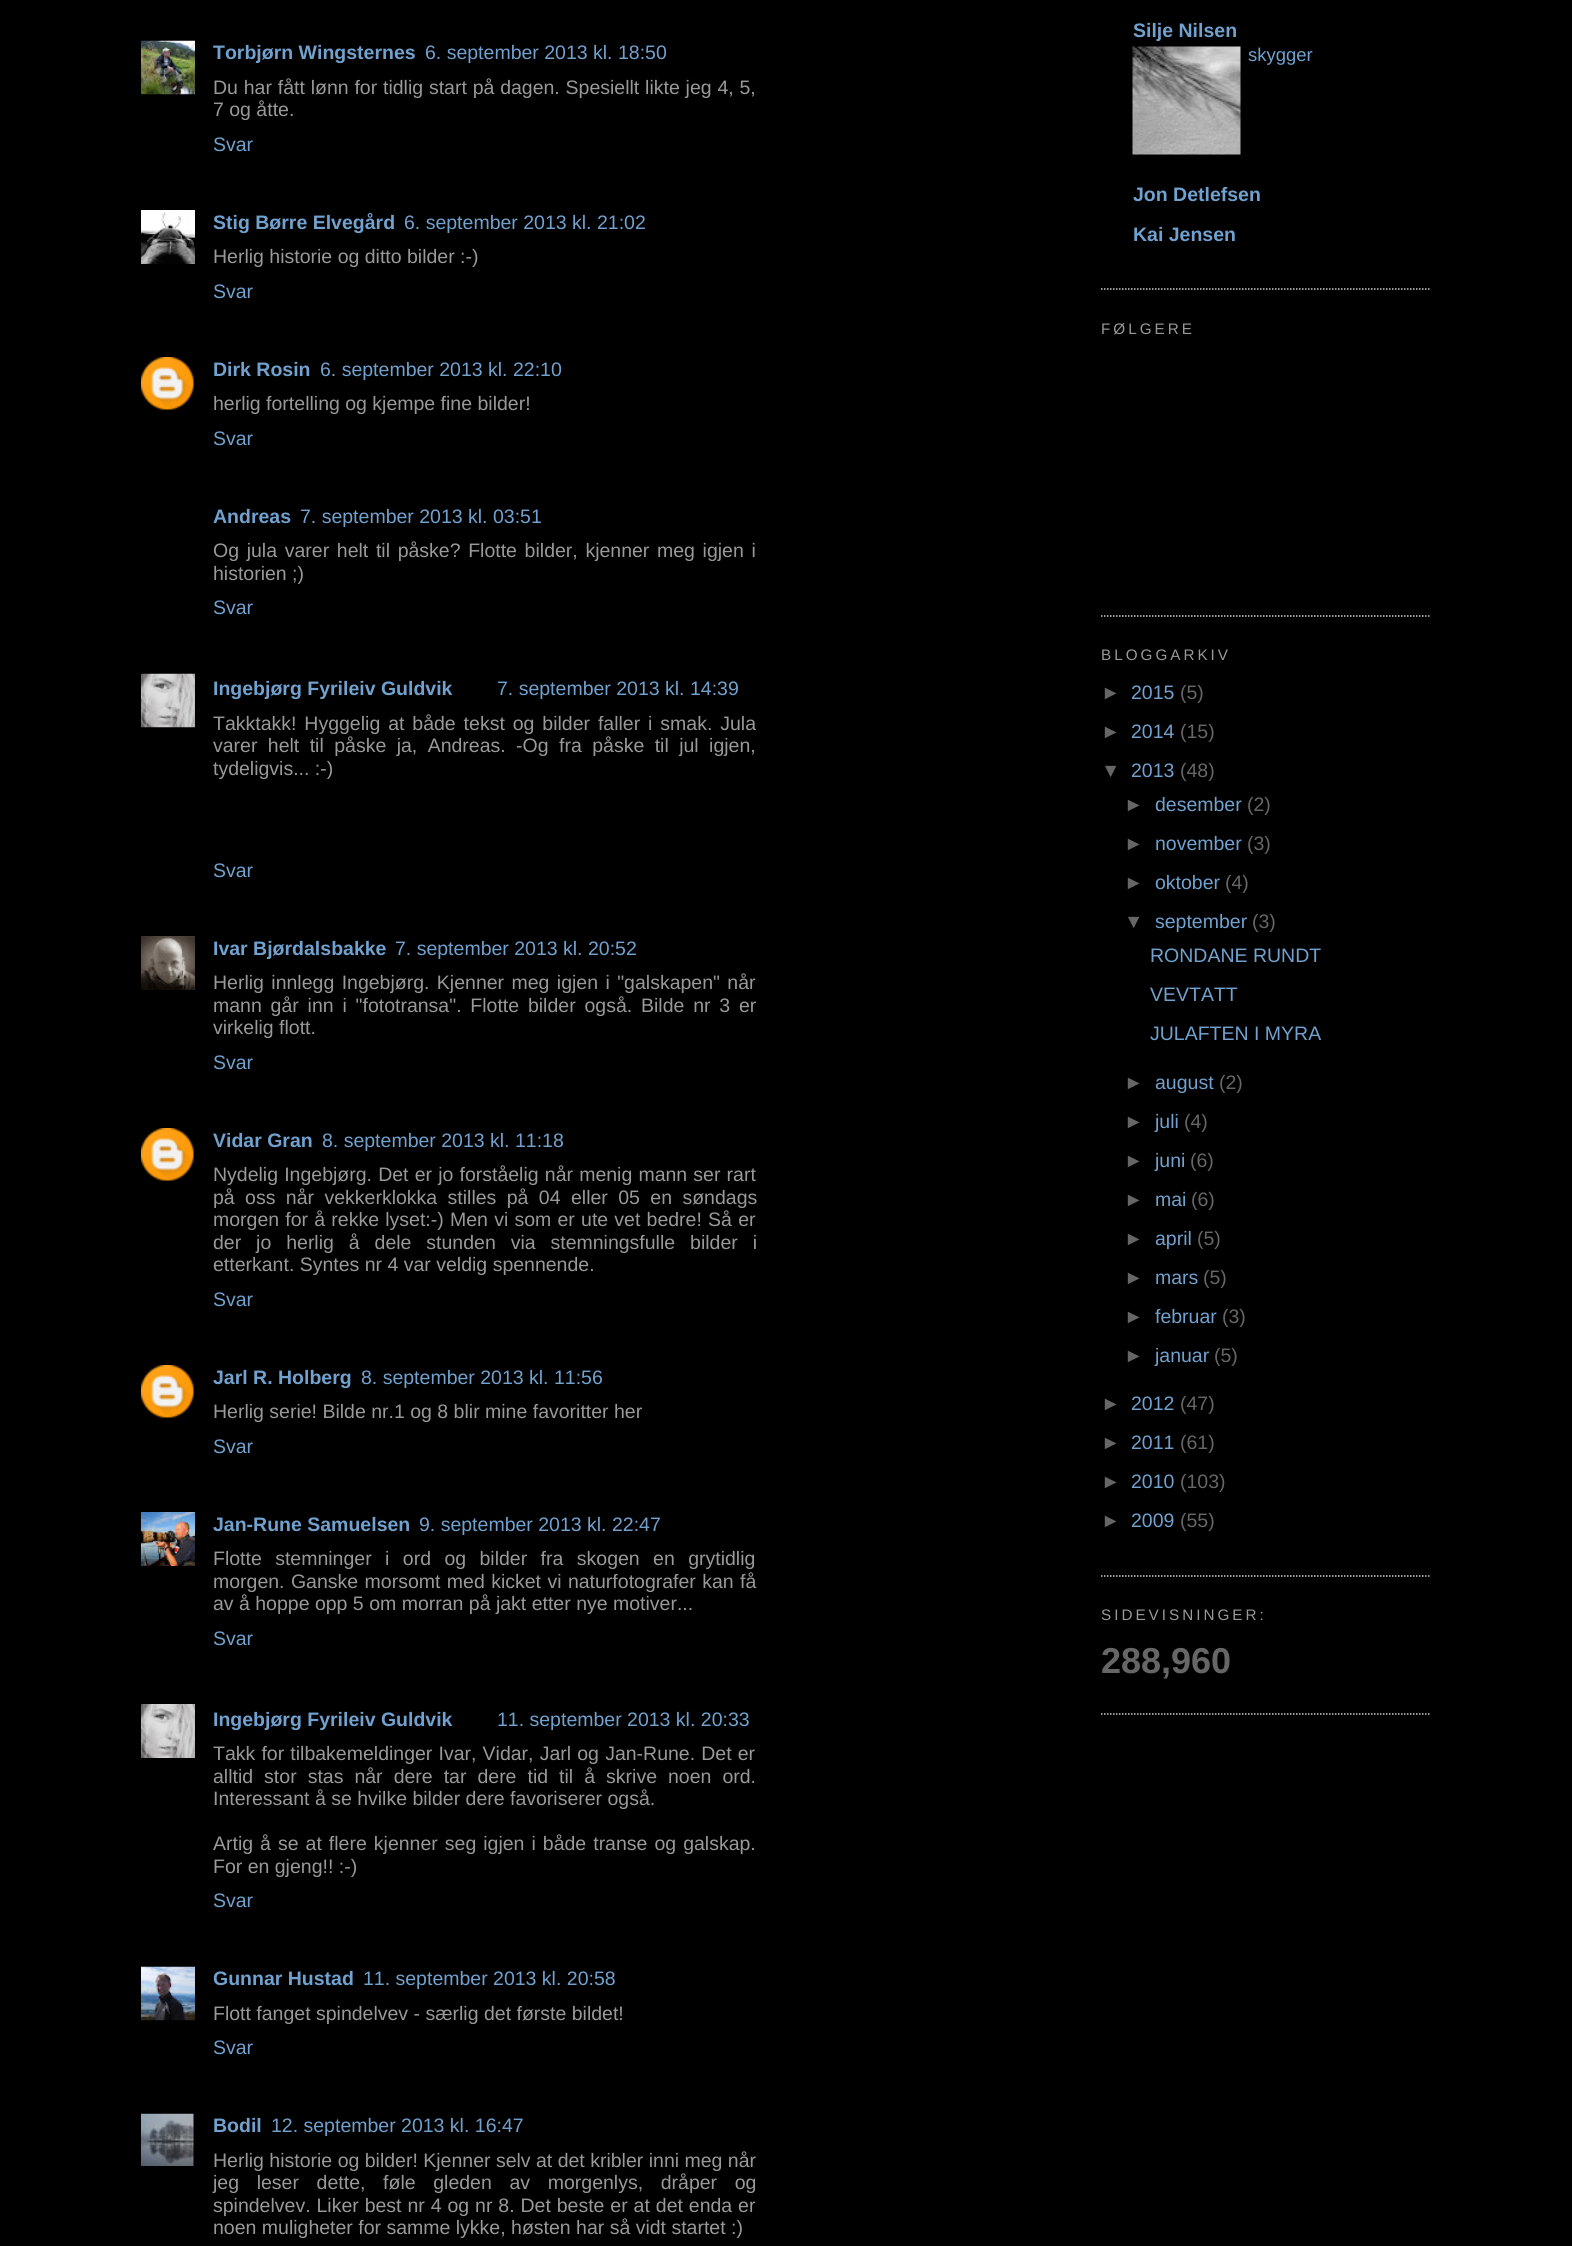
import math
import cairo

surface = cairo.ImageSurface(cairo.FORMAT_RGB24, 1572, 2246)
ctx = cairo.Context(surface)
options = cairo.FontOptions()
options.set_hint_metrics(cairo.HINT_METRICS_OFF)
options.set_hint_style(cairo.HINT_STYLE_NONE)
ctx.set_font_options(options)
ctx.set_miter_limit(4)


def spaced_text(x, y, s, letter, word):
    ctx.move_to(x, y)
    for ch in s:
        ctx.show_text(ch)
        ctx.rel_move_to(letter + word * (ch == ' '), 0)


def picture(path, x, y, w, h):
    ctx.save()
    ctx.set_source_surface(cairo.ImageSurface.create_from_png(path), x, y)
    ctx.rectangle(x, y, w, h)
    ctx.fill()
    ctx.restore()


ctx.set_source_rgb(0, 0, 0)
ctx.paint()
picture("img1.png", 141, 40, 54, 55)
ctx.select_font_face("Liberation Sans", cairo.FONT_SLANT_NORMAL, cairo.FONT_WEIGHT_BOLD)
ctx.set_font_size(19.5)
ctx.set_source_rgb(0.443, 0.631, 0.808)
ctx.move_to(213, 59)
ctx.show_text("Torbjørn Wingsternes")
ctx.select_font_face("Liberation Sans")
ctx.move_to(425, 59)
ctx.show_text("6. september 2013 kl. 18:50")
ctx.set_source_rgb(0.6, 0.6, 0.6)
spaced_text(213, 94, "Du har fått lønn for tidlig start på dagen. Spesiellt likte jeg 4, 5,", 0, 0.4)
ctx.move_to(213, 116)
ctx.show_text("7 og åtte.")
ctx.set_source_rgb(0.443, 0.631, 0.808)
ctx.move_to(213, 151)
ctx.show_text("Svar")
picture("img2.png", 141, 210, 54, 54)
ctx.select_font_face("Liberation Sans", cairo.FONT_SLANT_NORMAL, cairo.FONT_WEIGHT_BOLD)
ctx.move_to(213, 229)
ctx.show_text("Stig Børre Elvegård")
ctx.select_font_face("Liberation Sans")
ctx.move_to(404, 229)
ctx.show_text("6. september 2013 kl. 21:02")
ctx.set_source_rgb(0.6, 0.6, 0.6)
ctx.move_to(213, 263)
ctx.show_text("Herlig historie og ditto bilder :-)")
ctx.set_source_rgb(0.443, 0.631, 0.808)
ctx.move_to(213, 298)
ctx.show_text("Svar")
picture("img3.png", 141, 357, 53, 53)
ctx.select_font_face("Liberation Sans", cairo.FONT_SLANT_NORMAL, cairo.FONT_WEIGHT_BOLD)
ctx.move_to(213, 376)
ctx.show_text("Dirk Rosin")
ctx.select_font_face("Liberation Sans")
ctx.move_to(320, 376)
ctx.show_text("6. september 2013 kl. 22:10")
ctx.set_source_rgb(0.6, 0.6, 0.6)
ctx.move_to(213, 410)
ctx.show_text("herlig fortelling og kjempe fine bilder!")
ctx.set_source_rgb(0.443, 0.631, 0.808)
ctx.move_to(213, 445)
ctx.show_text("Svar")
ctx.select_font_face("Liberation Sans", cairo.FONT_SLANT_NORMAL, cairo.FONT_WEIGHT_BOLD)
ctx.move_to(213, 523)
ctx.show_text("Andreas")
ctx.select_font_face("Liberation Sans")
ctx.move_to(300, 523)
ctx.show_text("7. september 2013 kl. 03:51")
ctx.set_source_rgb(0.6, 0.6, 0.6)
spaced_text(213, 557, "Og jula varer helt til påske? Flotte bilder, kjenner meg igjen i", 0, 2.25)
ctx.move_to(213, 580)
ctx.show_text("historien ;)")
ctx.set_source_rgb(0.443, 0.631, 0.808)
ctx.move_to(213, 614)
ctx.show_text("Svar")
picture("img4.png", 141, 673, 54, 55)
ctx.select_font_face("Liberation Sans", cairo.FONT_SLANT_NORMAL, cairo.FONT_WEIGHT_BOLD)
ctx.move_to(213, 695)
ctx.show_text("Ingebjørg Fyrileiv Guldvik")
ctx.select_font_face("Liberation Sans")
ctx.move_to(497, 695)
ctx.show_text("7. september 2013 kl. 14:39")
ctx.set_source_rgb(0.6, 0.6, 0.6)
spaced_text(213, 730, "Takktakk! Hyggelig at både tekst og bilder faller i smak. Jula", 0, 2.5)
spaced_text(213, 752, "varer helt til påske ja, Andreas. -Og fra påske til jul igjen,", 0, 5)
ctx.move_to(213, 775)
ctx.show_text("tydeligvis... :-)")
ctx.set_source_rgb(0.443, 0.631, 0.808)
ctx.move_to(213, 877)
ctx.show_text("Svar")
picture("img5.png", 141, 936, 54, 54)
ctx.select_font_face("Liberation Sans", cairo.FONT_SLANT_NORMAL, cairo.FONT_WEIGHT_BOLD)
ctx.move_to(213, 955)
ctx.show_text("Ivar Bjørdalsbakke")
ctx.select_font_face("Liberation Sans")
ctx.move_to(395, 955)
ctx.show_text("7. september 2013 kl. 20:52")
ctx.set_source_rgb(0.6, 0.6, 0.6)
spaced_text(213, 989, "Herlig innlegg Ingebjørg. Kjenner meg igjen i \"galskapen\" når", 0, 2)
spaced_text(213, 1012, "mann går inn i \"fototransa\". Flotte bilder også. Bilde nr 3 er", 0, 3.4)
ctx.move_to(213, 1034)
ctx.show_text("virkelig flott.")
ctx.set_source_rgb(0.443, 0.631, 0.808)
ctx.move_to(213, 1069)
ctx.show_text("Svar")
picture("img3.png", 141, 1128, 53, 53)
ctx.select_font_face("Liberation Sans", cairo.FONT_SLANT_NORMAL, cairo.FONT_WEIGHT_BOLD)
ctx.move_to(213, 1147)
ctx.show_text("Vidar Gran")
ctx.select_font_face("Liberation Sans")
ctx.move_to(322, 1147)
ctx.show_text("8. september 2013 kl. 11:18")
ctx.set_source_rgb(0.6, 0.6, 0.6)
spaced_text(213, 1181, "Nydelig Ingebjørg. Det er jo forståelig når menig mann ser rart", 0, 0.75)
spaced_text(213, 1204, "på oss når vekkerklokka stilles på 04 eller 05 en søndags", 0, 5)
spaced_text(213, 1226, "morgen for å rekke lyset:-) Men vi som er ute vet bedre! Så er", 0, 0.8)
spaced_text(213, 1249, "der jo herlig å dele stunden via stemningsfulle bilder i", 0, 9.5)
ctx.move_to(213, 1271)
ctx.show_text("etterkant. Syntes nr 4 var veldig spennende.")
ctx.set_source_rgb(0.443, 0.631, 0.808)
ctx.move_to(213, 1306)
ctx.show_text("Svar")
picture("img3.png", 141, 1365, 53, 53)
ctx.select_font_face("Liberation Sans", cairo.FONT_SLANT_NORMAL, cairo.FONT_WEIGHT_BOLD)
ctx.move_to(213, 1384)
ctx.show_text("Jarl R. Holberg")
ctx.select_font_face("Liberation Sans")
ctx.move_to(361, 1384)
ctx.show_text("8. september 2013 kl. 11:56")
ctx.set_source_rgb(0.6, 0.6, 0.6)
ctx.move_to(213, 1418)
ctx.show_text("Herlig serie! Bilde nr.1 og 8 blir mine favoritter her")
ctx.set_source_rgb(0.443, 0.631, 0.808)
ctx.move_to(213, 1453)
ctx.show_text("Svar")
picture("img6.png", 141, 1512, 54, 54)
ctx.select_font_face("Liberation Sans", cairo.FONT_SLANT_NORMAL, cairo.FONT_WEIGHT_BOLD)
ctx.move_to(213, 1531)
ctx.show_text("Jan-Rune Samuelsen")
ctx.select_font_face("Liberation Sans")
ctx.move_to(419, 1531)
ctx.show_text("9. september 2013 kl. 22:47")
ctx.set_source_rgb(0.6, 0.6, 0.6)
spaced_text(213, 1565, "Flotte stemninger i ord og bilder fra skogen en grytidlig", 0, 8)
spaced_text(213, 1588, "morgen. Ganske morsomt med kicket vi naturfotografer kan få", 0, 1)
ctx.move_to(213, 1610)
ctx.show_text("av å hoppe opp 5 om morran på jakt etter nye motiver...")
ctx.set_source_rgb(0.443, 0.631, 0.808)
ctx.move_to(213, 1645)
ctx.show_text("Svar")
picture("img7.png", 141, 1704, 54, 54)
ctx.select_font_face("Liberation Sans", cairo.FONT_SLANT_NORMAL, cairo.FONT_WEIGHT_BOLD)
ctx.move_to(213, 1726)
ctx.show_text("Ingebjørg Fyrileiv Guldvik")
ctx.select_font_face("Liberation Sans")
ctx.move_to(497, 1726)
ctx.show_text("11. september 2013 kl. 20:33")
ctx.set_source_rgb(0.6, 0.6, 0.6)
spaced_text(213, 1760, "Takk for tilbakemeldinger Ivar, Vidar, Jarl og Jan-Rune. Det er", 0, 0.75)
spaced_text(213, 1783, "alltid stor stas når dere tar dere tid til å skrive noen ord.", 0, 5.6)
ctx.move_to(213, 1805)
ctx.show_text("Interessant å se hvilke bilder dere favoriserer også.")
spaced_text(213, 1850, "Artig å se at flere kjenner seg igjen i både transe og galskap.", 0, 1.6)
ctx.move_to(213, 1873)
ctx.show_text("For en gjeng!! :-)")
ctx.set_source_rgb(0.443, 0.631, 0.808)
ctx.move_to(213, 1907)
ctx.show_text("Svar")
picture("img8.png", 141, 1966, 54, 55)
ctx.select_font_face("Liberation Sans", cairo.FONT_SLANT_NORMAL, cairo.FONT_WEIGHT_BOLD)
ctx.move_to(213, 1985)
ctx.show_text("Gunnar Hustad")
ctx.select_font_face("Liberation Sans")
ctx.move_to(363, 1985)
ctx.show_text("11. september 2013 kl. 20:58")
ctx.set_source_rgb(0.6, 0.6, 0.6)
ctx.move_to(213, 2020)
ctx.show_text("Flott fanget spindelvev - særlig det første bildet!")
ctx.set_source_rgb(0.443, 0.631, 0.808)
ctx.move_to(213, 2054)
ctx.show_text("Svar")
picture("img9.png", 141, 2113, 53, 53)
ctx.select_font_face("Liberation Sans", cairo.FONT_SLANT_NORMAL, cairo.FONT_WEIGHT_BOLD)
ctx.move_to(213, 2132)
ctx.show_text("Bodil")
ctx.select_font_face("Liberation Sans")
ctx.move_to(271, 2132)
ctx.show_text("12. september 2013 kl. 16:47")
ctx.set_source_rgb(0.6, 0.6, 0.6)
ctx.move_to(213, 2167)
ctx.show_text("Herlig historie og bilder! Kjenner selv at det kribler inni meg når")
spaced_text(213, 2189, "jeg leser dette, føle gleden av morgenlys, dråper og", 0, 12.25)
spaced_text(213, 2212, "spindelvev. Liker best nr 4 og nr 8. Det beste er at det enda er", 0, 0.5)
ctx.move_to(213, 2234)
ctx.show_text("noen muligheter for samme lykke, høsten har så vidt startet :)")
ctx.new_path()
ctx.move_to(1101, 289)
ctx.line_to(1431, 289)
ctx.set_source_rgb(0.8, 0.8, 0.8)
ctx.set_line_width(1.5)
ctx.set_dash([1.5, 1.5])
ctx.stroke()
ctx.select_font_face("Liberation Sans", cairo.FONT_SLANT_NORMAL, cairo.FONT_WEIGHT_BOLD)
ctx.set_source_rgb(0.443, 0.631, 0.808)
ctx.move_to(1133, 37)
ctx.show_text("Silje Nilsen")
picture("img10.png", 1132, 46, 109, 109)
ctx.select_font_face("Liberation Sans")
ctx.set_font_size(18.5)
ctx.move_to(1248, 61)
ctx.show_text("skygger")
ctx.select_font_face("Liberation Sans", cairo.FONT_SLANT_NORMAL, cairo.FONT_WEIGHT_BOLD)
ctx.set_font_size(19.5)
ctx.move_to(1133, 201)
ctx.show_text("Jon Detlefsen")
ctx.move_to(1133, 241)
ctx.show_text("Kai Jensen")
ctx.new_path()
ctx.move_to(1101, 616)
ctx.line_to(1431, 616)
ctx.set_source_rgb(0.8, 0.8, 0.8)
ctx.stroke()
ctx.select_font_face("Liberation Sans")
ctx.set_font_size(15.25)
ctx.set_source_rgb(0.6, 0.6, 0.6)
spaced_text(1101, 334, "FØLGERE", 3, 0)
ctx.new_path()
ctx.move_to(1101, 1576)
ctx.line_to(1431, 1576)
ctx.set_source_rgb(0.8, 0.8, 0.8)
ctx.stroke()
ctx.set_source_rgb(0.6, 0.6, 0.6)
spaced_text(1101, 660, "BLOGGARKIV", 3, 0)
ctx.set_font_size(19.5)
ctx.set_source_rgb(0.4, 0.4, 0.4)
ctx.move_to(1101, 699)
ctx.show_text("►")
ctx.set_source_rgb(0.443, 0.631, 0.808)
ctx.move_to(1131, 699)
ctx.show_text("2015")
ctx.set_source_rgb(0.4, 0.4, 0.4)
ctx.move_to(1180, 699)
ctx.show_text("(5)")
ctx.move_to(1101, 738)
ctx.show_text("►")
ctx.set_source_rgb(0.443, 0.631, 0.808)
ctx.move_to(1131, 738)
ctx.show_text("2014")
ctx.set_source_rgb(0.4, 0.4, 0.4)
ctx.move_to(1180, 738)
ctx.show_text("(15)")
ctx.move_to(1101, 777)
ctx.show_text("▼")
ctx.set_source_rgb(0.443, 0.631, 0.808)
ctx.move_to(1131, 777)
ctx.show_text("2013")
ctx.set_source_rgb(0.4, 0.4, 0.4)
ctx.move_to(1180, 777)
ctx.show_text("(48)")
ctx.move_to(1124, 811)
ctx.show_text("►")
ctx.set_source_rgb(0.443, 0.631, 0.808)
ctx.move_to(1155, 811)
ctx.show_text("desember")
ctx.set_source_rgb(0.4, 0.4, 0.4)
ctx.move_to(1247, 811)
ctx.show_text("(2)")
ctx.move_to(1124, 850)
ctx.show_text("►")
ctx.set_source_rgb(0.443, 0.631, 0.808)
ctx.move_to(1155, 850)
ctx.show_text("november")
ctx.set_source_rgb(0.4, 0.4, 0.4)
ctx.move_to(1247, 850)
ctx.show_text("(3)")
ctx.move_to(1124, 889)
ctx.show_text("►")
ctx.set_source_rgb(0.443, 0.631, 0.808)
ctx.move_to(1155, 889)
ctx.show_text("oktober")
ctx.set_source_rgb(0.4, 0.4, 0.4)
ctx.move_to(1225, 889)
ctx.show_text("(4)")
ctx.move_to(1124, 928)
ctx.show_text("▼")
ctx.set_source_rgb(0.443, 0.631, 0.808)
ctx.move_to(1155, 928)
ctx.show_text("september")
ctx.set_source_rgb(0.4, 0.4, 0.4)
ctx.move_to(1252, 928)
ctx.show_text("(3)")
ctx.set_source_rgb(0.443, 0.631, 0.808)
ctx.move_to(1150, 962)
ctx.show_text("RONDANE RUNDT")
ctx.move_to(1150, 1001)
ctx.show_text("VEVTATT")
ctx.move_to(1150, 1040)
ctx.show_text("JULAFTEN I MYRA")
ctx.set_source_rgb(0.4, 0.4, 0.4)
ctx.move_to(1124, 1089)
ctx.show_text("►")
ctx.set_source_rgb(0.443, 0.631, 0.808)
ctx.move_to(1155, 1089)
ctx.show_text("august")
ctx.set_source_rgb(0.4, 0.4, 0.4)
ctx.move_to(1219, 1089)
ctx.show_text("(2)")
ctx.move_to(1124, 1128)
ctx.show_text("►")
ctx.set_source_rgb(0.443, 0.631, 0.808)
ctx.move_to(1155, 1128)
ctx.show_text("juli")
ctx.set_source_rgb(0.4, 0.4, 0.4)
ctx.move_to(1184, 1128)
ctx.show_text("(4)")
ctx.move_to(1124, 1167)
ctx.show_text("►")
ctx.set_source_rgb(0.443, 0.631, 0.808)
ctx.move_to(1155, 1167)
ctx.show_text("juni")
ctx.set_source_rgb(0.4, 0.4, 0.4)
ctx.move_to(1190, 1167)
ctx.show_text("(6)")
ctx.move_to(1124, 1206)
ctx.show_text("►")
ctx.set_source_rgb(0.443, 0.631, 0.808)
ctx.move_to(1155, 1206)
ctx.show_text("mai")
ctx.set_source_rgb(0.4, 0.4, 0.4)
ctx.move_to(1191, 1206)
ctx.show_text("(6)")
ctx.move_to(1124, 1245)
ctx.show_text("►")
ctx.set_source_rgb(0.443, 0.631, 0.808)
ctx.move_to(1155, 1245)
ctx.show_text("april")
ctx.set_source_rgb(0.4, 0.4, 0.4)
ctx.move_to(1197, 1245)
ctx.show_text("(5)")
ctx.move_to(1124, 1284)
ctx.show_text("►")
ctx.set_source_rgb(0.443, 0.631, 0.808)
ctx.move_to(1155, 1284)
ctx.show_text("mars")
ctx.set_source_rgb(0.4, 0.4, 0.4)
ctx.move_to(1203, 1284)
ctx.show_text("(5)")
ctx.move_to(1124, 1323)
ctx.show_text("►")
ctx.set_source_rgb(0.443, 0.631, 0.808)
ctx.move_to(1155, 1323)
ctx.show_text("februar")
ctx.set_source_rgb(0.4, 0.4, 0.4)
ctx.move_to(1222, 1323)
ctx.show_text("(3)")
ctx.move_to(1124, 1362)
ctx.show_text("►")
ctx.set_source_rgb(0.443, 0.631, 0.808)
ctx.move_to(1155, 1362)
ctx.show_text("januar")
ctx.set_source_rgb(0.4, 0.4, 0.4)
ctx.move_to(1214, 1362)
ctx.show_text("(5)")
ctx.move_to(1101, 1410)
ctx.show_text("►")
ctx.set_source_rgb(0.443, 0.631, 0.808)
ctx.move_to(1131, 1410)
ctx.show_text("2012")
ctx.set_source_rgb(0.4, 0.4, 0.4)
ctx.move_to(1180, 1410)
ctx.show_text("(47)")
ctx.move_to(1101, 1449)
ctx.show_text("►")
ctx.set_source_rgb(0.443, 0.631, 0.808)
ctx.move_to(1131, 1449)
ctx.show_text("2011")
ctx.set_source_rgb(0.4, 0.4, 0.4)
ctx.move_to(1180, 1449)
ctx.show_text("(61)")
ctx.move_to(1101, 1488)
ctx.show_text("►")
ctx.set_source_rgb(0.443, 0.631, 0.808)
ctx.move_to(1131, 1488)
ctx.show_text("2010")
ctx.set_source_rgb(0.4, 0.4, 0.4)
ctx.move_to(1180, 1488)
ctx.show_text("(103)")
ctx.move_to(1101, 1527)
ctx.show_text("►")
ctx.set_source_rgb(0.443, 0.631, 0.808)
ctx.move_to(1131, 1527)
ctx.show_text("2009")
ctx.set_source_rgb(0.4, 0.4, 0.4)
ctx.move_to(1180, 1527)
ctx.show_text("(55)")
ctx.new_path()
ctx.move_to(1101, 1714)
ctx.line_to(1431, 1714)
ctx.set_source_rgb(0.8, 0.8, 0.8)
ctx.stroke()
ctx.set_font_size(15.25)
ctx.set_source_rgb(0.6, 0.6, 0.6)
spaced_text(1101, 1620, "SIDEVISNINGER:", 3, 0)
ctx.select_font_face("Liberation Sans", cairo.FONT_SLANT_NORMAL, cairo.FONT_WEIGHT_BOLD)
ctx.set_font_size(36)
ctx.set_source_rgb(0.4, 0.4, 0.4)
ctx.move_to(1101, 1673)
ctx.show_text("288,960")
surface.write_to_png("page.png")
